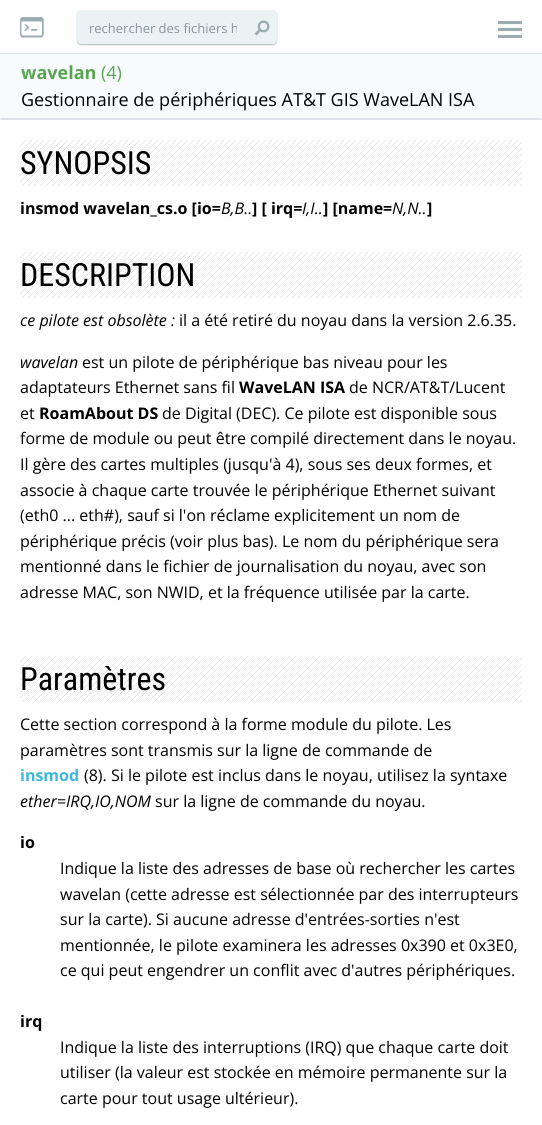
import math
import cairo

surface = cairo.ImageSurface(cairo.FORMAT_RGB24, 542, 1125)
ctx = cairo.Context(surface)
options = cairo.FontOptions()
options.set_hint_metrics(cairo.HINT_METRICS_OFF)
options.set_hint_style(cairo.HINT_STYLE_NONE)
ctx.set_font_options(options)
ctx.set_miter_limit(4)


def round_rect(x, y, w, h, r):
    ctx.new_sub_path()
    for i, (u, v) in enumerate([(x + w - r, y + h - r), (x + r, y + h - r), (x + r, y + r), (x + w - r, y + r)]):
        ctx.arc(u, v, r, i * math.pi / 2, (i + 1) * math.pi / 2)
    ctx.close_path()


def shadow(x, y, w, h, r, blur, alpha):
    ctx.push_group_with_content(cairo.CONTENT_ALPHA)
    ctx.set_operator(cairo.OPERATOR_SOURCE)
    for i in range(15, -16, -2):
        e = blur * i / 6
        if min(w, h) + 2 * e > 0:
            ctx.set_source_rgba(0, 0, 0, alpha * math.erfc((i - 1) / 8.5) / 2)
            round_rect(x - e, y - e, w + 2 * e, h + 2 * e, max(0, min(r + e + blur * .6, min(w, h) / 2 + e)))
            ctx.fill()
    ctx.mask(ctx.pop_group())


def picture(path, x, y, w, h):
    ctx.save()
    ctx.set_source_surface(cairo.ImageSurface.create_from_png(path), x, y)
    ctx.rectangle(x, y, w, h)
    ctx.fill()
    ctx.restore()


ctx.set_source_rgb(0.996, 0.996, 0.996)
ctx.paint()
ctx.set_source_rgb(0.863, 0.898, 0.906)
ctx.rectangle(0, 53, 542, 1)
ctx.fill()
picture("img1.png", 20, 17, 24, 21)
ctx.set_source_rgb(0.024, 0.184, 0.216)
shadow(77, 11, 200, 34, 4, 0.5, 0.3)
ctx.set_source_rgb(0.918, 0.949, 0.957)
round_rect(77, 10, 200, 34, 4)
ctx.fill()
ctx.save()
ctx.rectangle(89, 19, 148, 18)
ctx.clip()
ctx.select_font_face("Open Sans")
ctx.set_font_size(13)
ctx.set_source_rgb(0.525, 0.588, 0.616)
ctx.move_to(89, 33)
ctx.show_text("rechercher des fichiers h")
ctx.restore()
picture("img2.png", 254, 20, 16, 16)
picture("img3.png", 498, 21, 24, 17)
ctx.set_source_rgb(0.965, 0.984, 0.988)
ctx.rectangle(0, 54, 542, 66)
ctx.fill()
ctx.set_source_rgb(0.875, 0.89, 0.914)
ctx.new_path()
ctx.move_to(542, 120)
ctx.line_to(0, 120)
ctx.line_to(1, 118)
ctx.line_to(541, 118)
ctx.close_path()
ctx.fill()
ctx.select_font_face("Open Sans", cairo.FONT_SLANT_NORMAL, cairo.FONT_WEIGHT_BOLD)
ctx.set_font_size(18)
ctx.set_source_rgb(0.349, 0.647, 0.322)
ctx.move_to(21, 79)
ctx.show_text("wavelan")
ctx.select_font_face("Open Sans")
ctx.move_to(101, 79)
ctx.show_text("(4)")
ctx.set_source_rgb(0, 0, 0)
ctx.move_to(21, 106)
ctx.show_text("Gestionnaire de périphériques AT&T GIS WaveLAN ISA")
picture("img4.png", 20, 140, 502, 46)
ctx.select_font_face("Roboto Condensed")
ctx.set_font_size(32)
ctx.move_to(20, 174)
ctx.show_text("SYNOPSIS")
ctx.select_font_face("Open Sans", cairo.FONT_SLANT_NORMAL, cairo.FONT_WEIGHT_BOLD)
ctx.set_font_size(16)
ctx.move_to(20, 214)
ctx.show_text("insmod wavelan_cs.o [io=")
ctx.select_font_face("Open Sans", cairo.FONT_SLANT_ITALIC)
ctx.move_to(221, 214)
ctx.show_text("B,B..")
ctx.select_font_face("Open Sans", cairo.FONT_SLANT_NORMAL, cairo.FONT_WEIGHT_BOLD)
ctx.move_to(252, 214)
ctx.show_text("] [ irq=")
ctx.select_font_face("Open Sans", cairo.FONT_SLANT_ITALIC)
ctx.move_to(302, 214)
ctx.show_text("I,I..")
ctx.select_font_face("Open Sans", cairo.FONT_SLANT_NORMAL, cairo.FONT_WEIGHT_BOLD)
ctx.move_to(323, 214)
ctx.show_text("] [name=")
ctx.select_font_face("Open Sans", cairo.FONT_SLANT_ITALIC)
ctx.move_to(392, 214)
ctx.show_text("N,N..")
ctx.select_font_face("Open Sans", cairo.FONT_SLANT_NORMAL, cairo.FONT_WEIGHT_BOLD)
ctx.move_to(427, 214)
ctx.show_text("]")
picture("img4.png", 20, 252, 502, 46)
ctx.select_font_face("Roboto Condensed")
ctx.set_font_size(32)
ctx.move_to(20, 286)
ctx.show_text("DESCRIPTION")
ctx.select_font_face("Open Sans", cairo.FONT_SLANT_ITALIC)
ctx.set_font_size(16)
ctx.move_to(20, 326)
ctx.show_text("ce pilote est obsolète :")
ctx.select_font_face("Open Sans")
ctx.move_to(179, 326)
ctx.show_text("il a été retiré du noyau dans la version 2.6.35.")
ctx.select_font_face("Open Sans", cairo.FONT_SLANT_ITALIC)
ctx.move_to(20, 368)
ctx.show_text("wavelan")
ctx.select_font_face("Open Sans")
ctx.move_to(82, 368)
ctx.show_text("est un pilote de périphérique bas niveau pour les")
ctx.move_to(20, 393)
ctx.show_text("adaptateurs Ethernet sans fil")
ctx.select_font_face("Open Sans", cairo.FONT_SLANT_NORMAL, cairo.FONT_WEIGHT_BOLD)
ctx.move_to(239, 393)
ctx.show_text("WaveLAN ISA")
ctx.select_font_face("Open Sans")
ctx.move_to(349, 393)
ctx.show_text("de NCR/AT&T/Lucent")
ctx.move_to(20, 419)
ctx.show_text("et")
ctx.select_font_face("Open Sans", cairo.FONT_SLANT_NORMAL, cairo.FONT_WEIGHT_BOLD)
ctx.move_to(39, 419)
ctx.show_text("RoamAbout DS")
ctx.select_font_face("Open Sans")
ctx.move_to(162, 419)
ctx.show_text("de Digital (DEC). Ce pilote est disponible sous")
ctx.move_to(20, 444)
ctx.show_text("forme de module ou peut être compilé directement dans le noyau.")
ctx.move_to(20, 470)
ctx.show_text("Il gère des cartes multiples (jusqu'à 4), sous ses deux formes, et")
ctx.move_to(20, 496)
ctx.show_text("associe à chaque carte trouvée le périphérique Ethernet suivant")
ctx.move_to(20, 521)
ctx.show_text("(eth0 ... eth#), sauf si l'on réclame explicitement un nom de")
ctx.move_to(20, 547)
ctx.show_text("périphérique précis (voir plus bas). Le nom du périphérique sera")
ctx.move_to(20, 572)
ctx.show_text("mentionné dans le fichier de journalisation du noyau, avec son")
ctx.move_to(20, 598)
ctx.show_text("adresse MAC, son NWID, et la fréquence utilisée par la carte.")
picture("img4.png", 20, 656, 502, 46)
ctx.select_font_face("Roboto Condensed")
ctx.set_font_size(32)
ctx.move_to(20, 690)
ctx.show_text("Paramètres")
ctx.select_font_face("Open Sans")
ctx.set_font_size(16)
ctx.move_to(20, 730)
ctx.show_text("Cette section correspond à la forme module du pilote. Les")
ctx.move_to(20, 756)
ctx.show_text("paramètres sont transmis sur la ligne de commande de")
ctx.select_font_face("Open Sans", cairo.FONT_SLANT_NORMAL, cairo.FONT_WEIGHT_BOLD)
ctx.set_source_rgb(0.239, 0.722, 0.859)
ctx.move_to(20, 781)
ctx.show_text("insmod")
ctx.select_font_face("Open Sans")
ctx.set_source_rgb(0, 0, 0)
ctx.move_to(84, 781)
ctx.show_text("(8). Si le pilote est inclus dans le noyau, utilisez la syntaxe")
ctx.select_font_face("Open Sans", cairo.FONT_SLANT_ITALIC)
ctx.move_to(20, 807)
ctx.show_text("ether=IRQ,IO,NOM")
ctx.select_font_face("Open Sans")
ctx.move_to(155, 807)
ctx.show_text("sur la ligne de commande du noyau.")
ctx.select_font_face("Open Sans", cairo.FONT_SLANT_NORMAL, cairo.FONT_WEIGHT_BOLD)
ctx.move_to(20, 848)
ctx.show_text("io")
ctx.select_font_face("Open Sans")
ctx.move_to(60, 874)
ctx.show_text("Indique la liste des adresses de base où rechercher les cartes")
ctx.move_to(60, 900)
ctx.show_text("wavelan (cette adresse est sélectionnée par des interrupteurs")
ctx.move_to(60, 925)
ctx.show_text("sur la carte). Si aucune adresse d'entrées-sorties n'est")
ctx.move_to(60, 951)
ctx.show_text("mentionnée, le pilote examinera les adresses 0x390 et 0x3E0,")
ctx.move_to(60, 976)
ctx.show_text("ce qui peut engendrer un conflit avec d'autres périphériques.")
ctx.select_font_face("Open Sans", cairo.FONT_SLANT_NORMAL, cairo.FONT_WEIGHT_BOLD)
ctx.move_to(20, 1027)
ctx.show_text("irq")
ctx.select_font_face("Open Sans")
ctx.move_to(60, 1053)
ctx.show_text("Indique la liste des interruptions (IRQ) que chaque carte doit")
ctx.move_to(60, 1078)
ctx.show_text("utiliser (la valeur est stockée en mémoire permanente sur la")
ctx.move_to(60, 1104)
ctx.show_text("carte pour tout usage ultérieur).")
surface.write_to_png("page.png")
